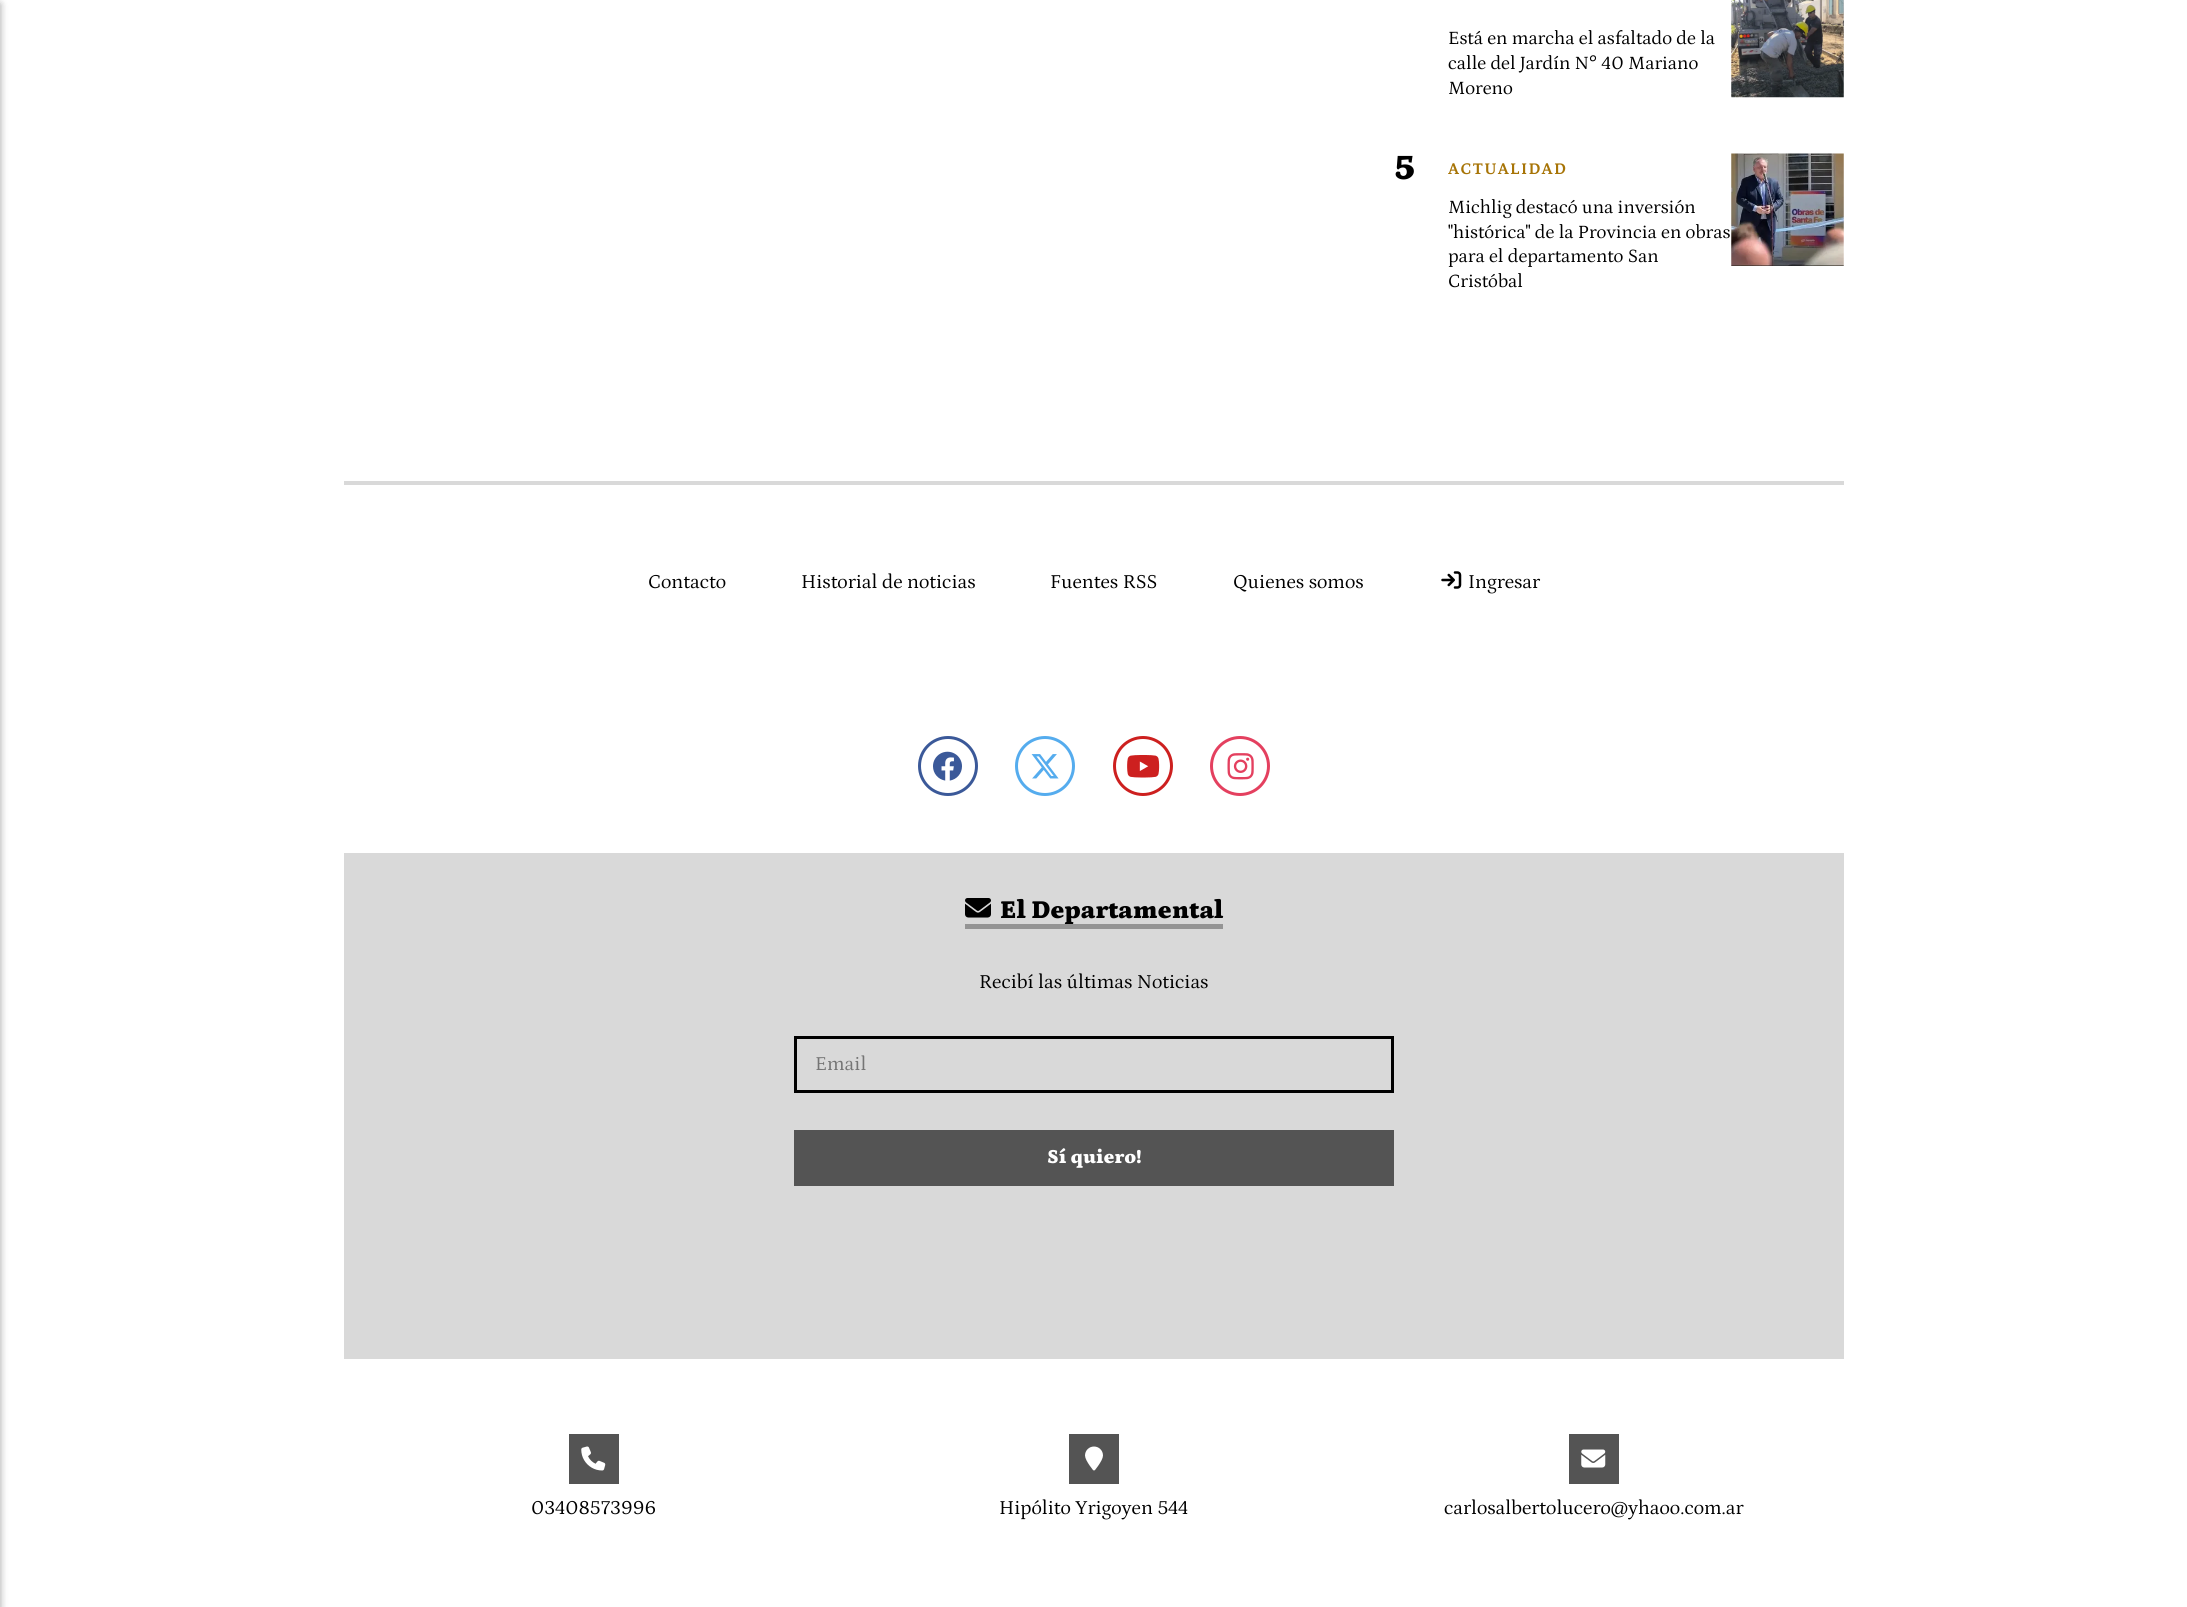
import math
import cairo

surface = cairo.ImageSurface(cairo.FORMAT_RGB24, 2187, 1607)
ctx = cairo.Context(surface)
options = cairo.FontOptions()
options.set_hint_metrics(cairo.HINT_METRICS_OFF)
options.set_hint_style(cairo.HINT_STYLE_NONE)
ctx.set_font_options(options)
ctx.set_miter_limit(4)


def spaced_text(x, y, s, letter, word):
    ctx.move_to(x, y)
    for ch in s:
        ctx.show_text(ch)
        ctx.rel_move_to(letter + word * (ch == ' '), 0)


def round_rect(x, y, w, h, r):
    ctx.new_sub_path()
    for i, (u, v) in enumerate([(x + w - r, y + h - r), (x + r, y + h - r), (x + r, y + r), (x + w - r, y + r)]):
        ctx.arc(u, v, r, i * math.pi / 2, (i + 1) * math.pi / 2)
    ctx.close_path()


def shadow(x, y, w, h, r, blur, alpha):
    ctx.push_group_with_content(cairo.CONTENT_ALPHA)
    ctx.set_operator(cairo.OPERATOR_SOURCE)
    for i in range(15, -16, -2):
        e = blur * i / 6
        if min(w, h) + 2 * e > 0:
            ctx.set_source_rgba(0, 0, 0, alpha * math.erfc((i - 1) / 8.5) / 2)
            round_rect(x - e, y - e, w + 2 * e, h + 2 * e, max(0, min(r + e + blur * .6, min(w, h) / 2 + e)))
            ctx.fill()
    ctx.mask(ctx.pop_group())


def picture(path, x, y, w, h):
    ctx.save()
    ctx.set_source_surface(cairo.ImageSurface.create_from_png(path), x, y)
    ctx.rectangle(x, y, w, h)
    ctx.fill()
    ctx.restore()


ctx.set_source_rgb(1, 1, 1)
ctx.paint()
ctx.set_source_rgb(0, 0, 0)
shadow(-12, 4, 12, 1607, 0, 4, 0.23)
shadow(-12, 4, 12, 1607, 0, 4, 0.16)
ctx.select_font_face("Petrona")
ctx.set_font_size(19)
ctx.set_source_rgb(0, 0, 0)
ctx.move_to(1448, 44)
ctx.show_text("Está en marcha el asfaltado de la")
ctx.move_to(1448, 69)
ctx.show_text("calle del Jardín N° 40 Mariano")
ctx.move_to(1448, 94)
ctx.show_text("Moreno")
picture("img1.png", 1731, 0, 113, 98)
ctx.select_font_face("Petrona Black")
ctx.set_font_size(36)
ctx.move_to(1394, 179)
ctx.show_text("5")
ctx.select_font_face("Petrona", cairo.FONT_SLANT_NORMAL, cairo.FONT_WEIGHT_BOLD)
ctx.set_font_size(16.5)
ctx.set_source_rgb(0.655, 0.455, 0.024)
spaced_text(1448, 174, "ACTUALIDAD", 1.25, 0)
ctx.select_font_face("Petrona")
ctx.set_font_size(19)
ctx.set_source_rgb(0, 0, 0)
ctx.move_to(1448, 213)
ctx.show_text("Michlig destacó una inversión")
ctx.move_to(1448, 238)
ctx.show_text("\"histórica\" de la Provincia en obras")
ctx.move_to(1448, 262)
ctx.show_text("para el departamento San")
ctx.move_to(1448, 287)
ctx.show_text("Cristóbal")
picture("img2.png", 1731, 153, 113, 113)
ctx.set_source_rgb(0.851, 0.851, 0.851)
ctx.rectangle(344, 481, 1500, 4)
ctx.fill()
ctx.set_font_size(20)
ctx.set_source_rgb(0, 0, 0)
ctx.move_to(648, 588)
ctx.show_text("Contacto")
ctx.move_to(801, 588)
ctx.show_text("Historial de noticias")
ctx.move_to(1050, 588)
ctx.show_text("Fuentes RSS")
ctx.move_to(1233, 588)
ctx.show_text("Quienes somos")
picture("img3.png", 1441, 571, 21, 18)
ctx.move_to(1468, 588)
ctx.show_text("Ingresar")
ctx.new_path()
ctx.arc(948, 766, 28.5, 0, 2 * math.pi)
ctx.set_source_rgb(0.231, 0.349, 0.6)
ctx.set_line_width(3)
ctx.stroke()
picture("img4.png", 933, 751, 29, 30)
ctx.arc(1045, 766, 28.5, 0, 2 * math.pi)
ctx.set_source_rgb(0.333, 0.675, 0.933)
ctx.stroke()
picture("img5.png", 1031, 754, 28, 25)
ctx.arc(1143, 766, 28.5, 0, 2 * math.pi)
ctx.set_source_rgb(0.804, 0.125, 0.122)
ctx.stroke()
picture("img6.png", 1127, 755, 33, 23)
ctx.arc(1240, 766, 28.5, 0, 2 * math.pi)
ctx.set_source_rgb(0.894, 0.251, 0.373)
ctx.stroke()
picture("img7.png", 1227, 753, 27, 27)
ctx.set_source_rgb(0.851, 0.851, 0.851)
ctx.rectangle(344, 853, 1500, 506)
ctx.fill()
picture("img8.png", 965, 898, 26, 20)
ctx.select_font_face("Petrona Black")
ctx.set_font_size(26)
ctx.set_source_rgb(0, 0, 0)
ctx.move_to(1000, 918)
ctx.show_text("El Departamental")
ctx.set_source_rgb(0.58, 0.58, 0.58)
ctx.rectangle(965, 924, 258, 5)
ctx.fill()
ctx.select_font_face("Petrona")
ctx.set_font_size(20)
ctx.set_source_rgb(0, 0, 0)
ctx.move_to(979, 988)
ctx.show_text("Recibí las últimas Noticias")
ctx.rectangle(795.5, 1037.5, 597, 54)
ctx.stroke()
ctx.set_source_rgb(0.459, 0.459, 0.459)
ctx.move_to(815, 1070)
ctx.show_text("Email")
ctx.set_source_rgb(0.329, 0.329, 0.329)
ctx.rectangle(794, 1130, 600, 56)
ctx.fill()
ctx.select_font_face("Petrona Black")
ctx.set_source_rgb(1, 1, 1)
ctx.move_to(1047, 1163)
ctx.show_text("Sí quiero!")
ctx.set_source_rgb(0.329, 0.329, 0.329)
ctx.rectangle(569, 1434, 50, 50)
ctx.fill()
picture("img9.png", 581, 1446, 25, 25)
ctx.select_font_face("Petrona")
ctx.set_source_rgb(0, 0, 0)
ctx.move_to(531, 1514)
ctx.show_text("03408573996")
ctx.set_source_rgb(0.329, 0.329, 0.329)
ctx.rectangle(1069, 1434, 50, 50)
ctx.fill()
picture("img10.png", 1085, 1446, 18, 25)
ctx.set_source_rgb(0, 0, 0)
ctx.move_to(999, 1514)
ctx.show_text("Hipólito Yrigoyen 544")
ctx.set_source_rgb(0.329, 0.329, 0.329)
ctx.rectangle(1569, 1434, 50, 50)
ctx.fill()
picture("img11.png", 1581, 1449, 25, 19)
ctx.set_source_rgb(0, 0, 0)
ctx.move_to(1444, 1514)
ctx.show_text("carlosalbertolucero@yhaoo.com.ar")
surface.write_to_png("page.png")
